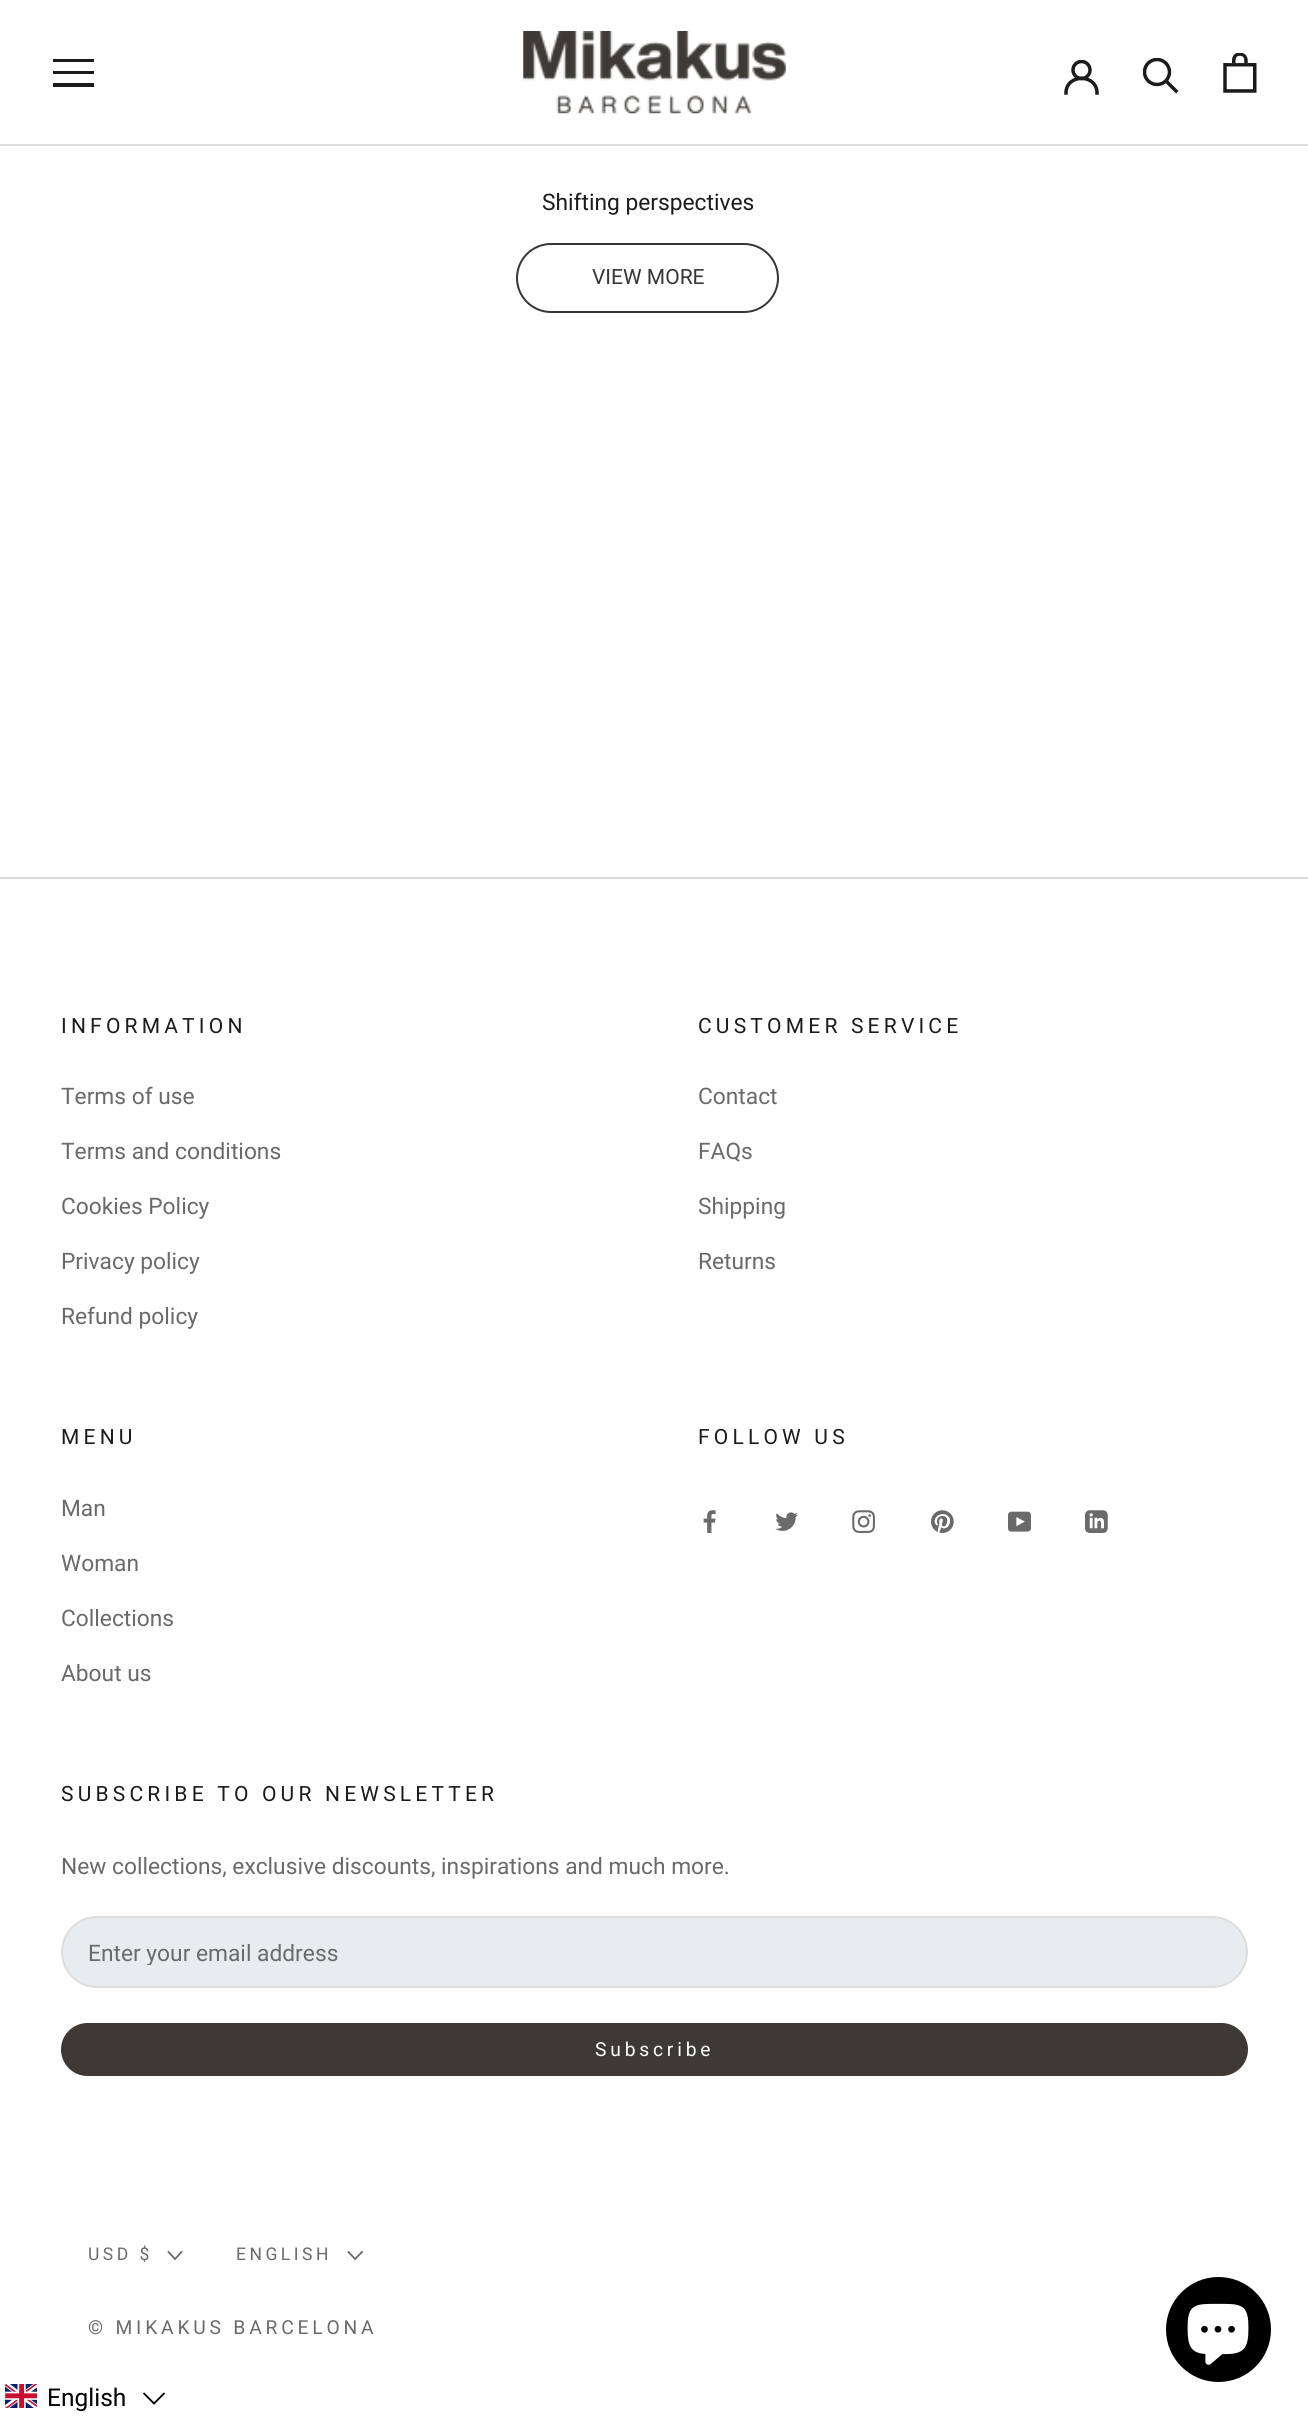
import math
import cairo

surface = cairo.ImageSurface(cairo.FORMAT_RGB24, 1308, 2418)
ctx = cairo.Context(surface)
options = cairo.FontOptions()
options.set_hint_metrics(cairo.HINT_METRICS_OFF)
options.set_hint_style(cairo.HINT_STYLE_NONE)
ctx.set_font_options(options)
ctx.set_miter_limit(4)


def spaced_text(x, y, s, letter, word):
    ctx.move_to(x, y)
    for ch in s:
        ctx.show_text(ch)
        ctx.rel_move_to(letter + word * (ch == ' '), 0)


def round_rect(x, y, w, h, r):
    ctx.new_sub_path()
    for i, (u, v) in enumerate([(x + w - r, y + h - r), (x + r, y + h - r), (x + r, y + r), (x + w - r, y + r)]):
        ctx.arc(u, v, r, i * math.pi / 2, (i + 1) * math.pi / 2)
    ctx.close_path()


def picture(path, x, y, w, h):
    ctx.save()
    ctx.set_source_surface(cairo.ImageSurface.create_from_png(path), x, y)
    ctx.rectangle(x, y, w, h)
    ctx.fill()
    ctx.restore()


ctx.set_source_rgb(1, 1, 1)
ctx.paint()
ctx.set_source_rgb(0.867, 0.867, 0.867)
ctx.rectangle(0, 144, 1308, 2)
ctx.fill()
ctx.save()
ctx.rectangle(53, 58, 42, 30)
ctx.clip()
ctx.set_source_rgb(0.11, 0.106, 0.106)
ctx.new_path()
ctx.move_to(52, 87)
ctx.line_to(52, 83)
ctx.line_to(94, 83)
ctx.line_to(94, 87)
ctx.close_path()
ctx.move_to(52, 71)
ctx.line_to(94, 71)
ctx.line_to(94, 74)
ctx.line_to(52, 74)
ctx.close_path()
ctx.move_to(52, 59)
ctx.line_to(94, 59)
ctx.line_to(94, 62)
ctx.line_to(52, 62)
ctx.close_path()
ctx.fill()
ctx.restore()
picture("img1.png", 523, 31, 263, 83)
ctx.new_path()
ctx.move_to(1066, 93)
ctx.curve_to(1066, 73.5, 1097, 73.5, 1097, 93)
ctx.set_source_rgb(0.11, 0.106, 0.106)
ctx.set_line_width(3.5)
ctx.set_line_cap(cairo.LINE_CAP_SQUARE)
ctx.stroke()
ctx.save()
ctx.rectangle(1064, 60, 35, 35)
ctx.clip()
ctx.arc(1081.5, 70, 8.5, 0, 2 * math.pi)
ctx.set_line_cap(cairo.LINE_CAP_BUTT)
ctx.stroke()
ctx.restore()
ctx.new_path()
ctx.move_to(1176, 91)
ctx.line_to(1166, 81)
ctx.stroke()
ctx.save()
ctx.rectangle(1143, 58, 37, 37)
ctx.clip()
ctx.arc(1157, 72, 12.5, 0, 2 * math.pi)
ctx.set_line_cap(cairo.LINE_CAP_BUTT)
ctx.stroke()
ctx.restore()
picture("img2.png", 1223, 53, 34, 40)
ctx.select_font_face("Roboto")
ctx.set_font_size(22.75)
ctx.move_to(542, 210)
ctx.show_text("Shifting perspectives")
round_rect(517, 244, 261, 68, 34)
ctx.set_source_rgb(0.212, 0.212, 0.212)
ctx.set_line_width(2)
ctx.set_line_cap(cairo.LINE_CAP_BUTT)
ctx.stroke()
ctx.set_font_size(21)
ctx.move_to(592, 284)
ctx.show_text("VIEW MORE")
ctx.set_source_rgb(0.867, 0.867, 0.867)
ctx.rectangle(0, 877, 1308, 2)
ctx.fill()
ctx.set_source_rgb(0.11, 0.106, 0.106)
spaced_text(61, 1033, "INFORMATION", 4.2, 0)
ctx.set_font_size(22.75)
ctx.set_source_rgb(0.416, 0.416, 0.416)
ctx.move_to(61, 1104)
ctx.show_text("Terms of use")
ctx.move_to(61, 1159)
ctx.show_text("Terms and conditions")
ctx.move_to(61, 1214)
ctx.show_text("Cookies Policy")
ctx.move_to(61, 1269)
ctx.show_text("Privacy policy")
ctx.move_to(61, 1324)
ctx.show_text("Refund policy")
ctx.set_font_size(21)
ctx.set_source_rgb(0.11, 0.106, 0.106)
spaced_text(698, 1033, "CUSTOMER SERVICE", 4.2, 0)
ctx.set_font_size(22.75)
ctx.set_source_rgb(0.416, 0.416, 0.416)
ctx.move_to(698, 1104)
ctx.show_text("Contact")
ctx.move_to(698, 1159)
ctx.show_text("FAQs")
ctx.move_to(698, 1214)
ctx.show_text("Shipping")
ctx.move_to(698, 1269)
ctx.show_text("Returns")
ctx.set_font_size(21)
ctx.set_source_rgb(0.11, 0.106, 0.106)
spaced_text(61, 1444, "MENU", 4.2, 0)
ctx.set_font_size(22.75)
ctx.set_source_rgb(0.416, 0.416, 0.416)
ctx.move_to(61, 1516)
ctx.show_text("Man")
ctx.move_to(61, 1571)
ctx.show_text("Woman")
ctx.move_to(61, 1626)
ctx.show_text("Collections")
ctx.move_to(61, 1681)
ctx.show_text("About us")
ctx.set_font_size(21)
ctx.set_source_rgb(0.11, 0.106, 0.106)
spaced_text(698, 1444, "FOLLOW US", 4.2, 0)
picture("img3.png", 703, 1510, 13, 23)
picture("img4.png", 775, 1512, 23, 19)
picture("img5.png", 852, 1510, 23, 23)
picture("img6.png", 931, 1510, 23, 23)
picture("img7.png", 1008, 1511, 23, 21)
picture("img8.png", 1085, 1510, 23, 23)
spaced_text(61, 1801, "SUBSCRIBE TO OUR NEWSLETTER", 4.2, 0)
ctx.set_font_size(22.75)
ctx.set_source_rgb(0.416, 0.416, 0.416)
ctx.move_to(61, 1874)
ctx.show_text("New collections, exclusive discounts, inspirations and much more.")
ctx.set_source_rgb(0.914, 0.925, 0.937)
round_rect(62, 1917, 1185, 70, 35)
ctx.fill_preserve()
ctx.set_source_rgb(0.867, 0.867, 0.867)
ctx.stroke()
ctx.save()
ctx.rectangle(88, 1939, 1134, 26)
ctx.clip()
ctx.set_source_rgb(0.416, 0.416, 0.416)
ctx.move_to(88, 1961)
ctx.show_text("Enter your email address")
ctx.restore()
ctx.set_source_rgb(0.239, 0.224, 0.212)
round_rect(62, 2024, 1185, 51, 25.5)
ctx.fill_preserve()
ctx.stroke()
ctx.set_font_size(19.25)
ctx.set_source_rgb(1, 1, 1)
spaced_text(595, 2056, "Subscribe", 3.8, 0)
ctx.set_font_size(17.5)
ctx.set_source_rgb(0.416, 0.416, 0.416)
spaced_text(88, 2260, "USD $", 3.5, 0)
ctx.new_path()
ctx.move_to(181.5, 2252)
ctx.line_to(175, 2259)
ctx.line_to(168.5, 2252)
ctx.set_line_width(1.8)
ctx.set_line_cap(cairo.LINE_CAP_SQUARE)
ctx.stroke()
spaced_text(236, 2260, "ENGLISH", 3.5, 0)
ctx.new_path()
ctx.move_to(362, 2252)
ctx.line_to(355, 2259)
ctx.line_to(348.5, 2252)
ctx.stroke()
ctx.set_font_size(19.25)
spaced_text(88, 2334, "© MIKAKUS BARCELONA", 3.8, 0)
ctx.set_source_rgb(0, 0, 0)
ctx.new_path()
ctx.arc(1218.5, 2329.5, 52.5, 0, 2 * math.pi)
ctx.fill()
picture("img9.png", 1187, 2303, 62, 62)
picture("img10.png", 5, 2384, 32, 24)
ctx.set_font_size(24.5)
ctx.move_to(47, 2406)
ctx.show_text("English")
ctx.new_path()
ctx.move_to(143.5, 2393)
ctx.line_to(154, 2403.5)
ctx.line_to(164.5, 2393)
ctx.set_line_cap(cairo.LINE_CAP_BUTT)
ctx.stroke()
surface.write_to_png("page.png")
